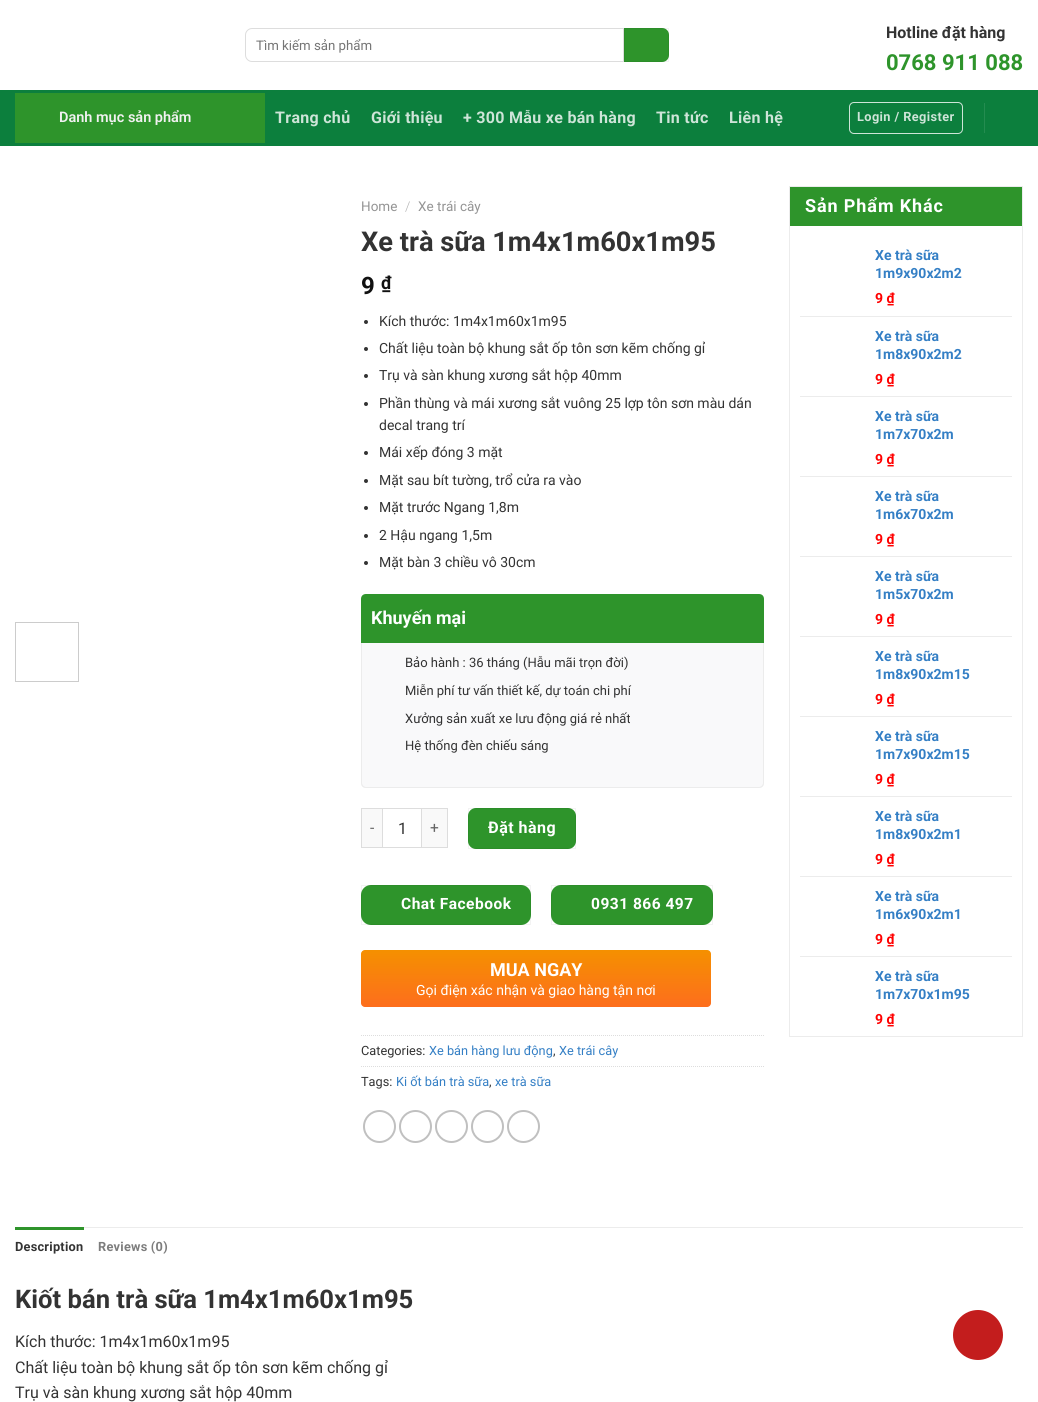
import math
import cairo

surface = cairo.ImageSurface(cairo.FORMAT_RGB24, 1038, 1402)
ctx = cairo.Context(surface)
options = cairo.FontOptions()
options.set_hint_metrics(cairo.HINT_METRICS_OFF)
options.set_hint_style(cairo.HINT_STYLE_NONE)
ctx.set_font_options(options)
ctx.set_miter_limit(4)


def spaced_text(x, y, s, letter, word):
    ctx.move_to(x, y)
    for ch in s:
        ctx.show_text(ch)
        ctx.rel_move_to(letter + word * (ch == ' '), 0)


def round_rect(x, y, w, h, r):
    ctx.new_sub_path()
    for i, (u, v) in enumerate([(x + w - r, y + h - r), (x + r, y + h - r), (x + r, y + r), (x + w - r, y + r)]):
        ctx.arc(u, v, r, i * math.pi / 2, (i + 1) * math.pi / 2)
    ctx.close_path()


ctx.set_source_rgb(1, 1, 1)
ctx.paint()
ctx.new_path()
ctx.move_to(252, 28.5)
ctx.line_to(623.5, 28.5)
ctx.line_to(623.5, 61.5)
ctx.line_to(252, 61.5)
ctx.curve_to(248.5, 61.5, 245.5, 58.5, 245.5, 55)
ctx.line_to(245.5, 35)
ctx.curve_to(245.5, 31.5, 248.5, 28.5, 252, 28.5)
ctx.close_path()
ctx.set_source_rgb(0.867, 0.867, 0.867)
ctx.set_line_width(1)
ctx.stroke()
ctx.select_font_face("Roboto")
ctx.set_font_size(13.25)
ctx.set_source_rgb(0.459, 0.459, 0.459)
ctx.move_to(256, 50)
ctx.show_text("Tìm kiếm sản phẩm")
ctx.set_source_rgb(0.18, 0.58, 0.169)
ctx.new_path()
ctx.move_to(624, 28)
ctx.line_to(662, 28)
ctx.curve_to(666, 28, 669, 31, 669, 35)
ctx.line_to(669, 55)
ctx.curve_to(669, 59, 666, 62, 662, 62)
ctx.line_to(624, 62)
ctx.close_path()
ctx.fill()
ctx.rectangle(624.5, 28.5, 44, 33)
ctx.set_source_rgba(0, 0, 0, 0.05)
ctx.stroke()
ctx.select_font_face("Roboto", cairo.FONT_SLANT_NORMAL, cairo.FONT_WEIGHT_BOLD)
ctx.set_font_size(16)
ctx.set_source_rgb(0.2, 0.2, 0.2)
ctx.move_to(886, 38)
ctx.show_text("Hotline đặt hàng")
ctx.set_font_size(22)
ctx.set_source_rgb(0.18, 0.58, 0.169)
ctx.move_to(886, 70)
ctx.show_text("0768 911 088")
ctx.set_source_rgb(0.047, 0.498, 0.239)
ctx.rectangle(0, 90, 1038, 56)
ctx.fill()
ctx.set_source_rgb(0.18, 0.58, 0.169)
ctx.rectangle(15, 93, 250, 50)
ctx.fill()
ctx.select_font_face("Roboto SemiBold")
ctx.set_font_size(14.5)
ctx.set_source_rgb(0.945, 0.945, 0.945)
ctx.move_to(59, 122)
ctx.show_text("Danh mục sản phẩm")
ctx.select_font_face("Roboto", cairo.FONT_SLANT_NORMAL, cairo.FONT_WEIGHT_BOLD)
ctx.set_font_size(16)
ctx.set_source_rgb(0.808, 0.898, 0.847)
spaced_text(275, 123, "Trang chủ", 0.3, 0)
spaced_text(371, 123, "Giới thiệu", 0.3, 0)
spaced_text(463, 123, "+ 300 Mẫu xe bán hàng", 0.3, 0)
spaced_text(656, 123, "Tin tức", 0.3, 0)
spaced_text(729, 123, "Liên hệ", 0.3, 0)
round_rect(849.5, 102.5, 113, 31, 4.5)
ctx.stroke()
ctx.set_font_size(12.75)
spaced_text(857, 121, "Login / Register", 0.4, 0)
ctx.set_source_rgb(0.141, 0.549, 0.314)
ctx.rectangle(984, 103, 1, 30)
ctx.fill()
ctx.rectangle(15.5, 622.5, 63, 59)
ctx.set_source_rgb(0.8, 0.8, 0.8)
ctx.stroke()
ctx.select_font_face("Roboto")
ctx.set_font_size(13.5)
ctx.set_source_rgb(0.58, 0.58, 0.58)
ctx.move_to(361, 211)
ctx.show_text("Home")
ctx.select_font_face("Roboto Light")
ctx.set_source_rgb(0.698, 0.698, 0.698)
ctx.move_to(405, 211)
ctx.show_text("/")
ctx.select_font_face("Roboto")
ctx.set_source_rgb(0.58, 0.58, 0.58)
ctx.move_to(418, 211)
ctx.show_text("Xe trái cây")
ctx.select_font_face("Roboto", cairo.FONT_SLANT_NORMAL, cairo.FONT_WEIGHT_BOLD)
ctx.set_font_size(27.25)
ctx.set_source_rgb(0.2, 0.2, 0.2)
ctx.move_to(361, 251)
ctx.show_text("Xe trà sữa 1m4x1m60x1m95")
ctx.set_font_size(24)
ctx.set_source_rgb(0.067, 0.067, 0.067)
ctx.move_to(361, 294)
ctx.show_text("9")
ctx.set_font_size(18)
ctx.move_to(381, 289)
ctx.show_text("₫")
ctx.set_source_rgb(0.2, 0.2, 0.2)
ctx.new_path()
ctx.arc(366, 322, 2, 0, 2 * math.pi)
ctx.fill()
ctx.select_font_face("Roboto")
ctx.set_font_size(14)
ctx.move_to(379, 326)
ctx.show_text("Kích thước: 1m4x1m60x1m95")
ctx.new_path()
ctx.arc(366, 349, 2, 0, 2 * math.pi)
ctx.fill()
ctx.move_to(379, 353)
ctx.show_text("Chất liệu toàn bộ khung sắt ốp tôn sơn kẽm chống gỉ")
ctx.new_path()
ctx.arc(366, 376, 2, 0, 2 * math.pi)
ctx.fill()
ctx.move_to(379, 380)
ctx.show_text("Trụ và sàn khung xương sắt hộp 40mm")
ctx.new_path()
ctx.arc(366, 404, 2, 0, 2 * math.pi)
ctx.fill()
ctx.move_to(379, 408)
ctx.show_text("Phần thùng và mái xương sắt vuông 25 lợp tôn sơn màu dán")
ctx.move_to(379, 430)
ctx.show_text("decal trang trí")
ctx.new_path()
ctx.arc(366, 453, 2, 0, 2 * math.pi)
ctx.fill()
ctx.move_to(379, 457)
ctx.show_text("Mái xếp đóng 3 mặt")
ctx.new_path()
ctx.arc(366, 481, 2, 0, 2 * math.pi)
ctx.fill()
ctx.move_to(379, 485)
ctx.show_text("Mặt sau bít tường, trổ cửa ra vào")
ctx.new_path()
ctx.arc(366, 508, 2, 0, 2 * math.pi)
ctx.fill()
ctx.move_to(379, 512)
ctx.show_text("Mặt trước Ngang 1,8m")
ctx.new_path()
ctx.arc(366, 536, 2, 0, 2 * math.pi)
ctx.fill()
ctx.move_to(379, 540)
ctx.show_text("2 Hậu ngang 1,5m")
ctx.new_path()
ctx.arc(366, 563, 2, 0, 2 * math.pi)
ctx.fill()
ctx.move_to(379, 567)
ctx.show_text("Mặt bàn 3 chiều vô 30cm")
ctx.set_source_rgb(0.18, 0.58, 0.169)
ctx.new_path()
ctx.move_to(366, 594)
ctx.line_to(759, 594)
ctx.curve_to(762, 594, 764, 596, 764, 599)
ctx.line_to(764, 643)
ctx.line_to(361, 643)
ctx.line_to(361, 599)
ctx.curve_to(361, 596, 363, 594, 366, 594)
ctx.close_path()
ctx.fill()
ctx.select_font_face("Roboto", cairo.FONT_SLANT_NORMAL, cairo.FONT_WEIGHT_BOLD)
ctx.set_font_size(18)
ctx.set_source_rgb(1, 1, 1)
ctx.move_to(371, 624)
ctx.show_text("Khuyến mại")
ctx.set_source_rgb(0.973, 0.976, 0.98)
ctx.new_path()
ctx.move_to(361, 643)
ctx.line_to(764, 643)
ctx.line_to(764, 783)
ctx.curve_to(764, 786, 762, 788, 759, 788)
ctx.line_to(366, 788)
ctx.curve_to(363, 788, 361, 786, 361, 783)
ctx.close_path()
ctx.fill()
ctx.set_source_rgb(0.922, 0.922, 0.922)
ctx.set_fill_rule(cairo.FILL_RULE_EVEN_ODD)
ctx.new_path()
ctx.move_to(361, 643)
ctx.line_to(764, 643)
ctx.line_to(764, 783)
ctx.curve_to(764, 786, 762, 788, 759, 788)
ctx.line_to(366, 788)
ctx.curve_to(363, 788, 361, 786, 361, 783)
ctx.close_path()
ctx.move_to(362, 643)
ctx.line_to(763, 643)
ctx.line_to(763, 783)
ctx.curve_to(763, 785, 761, 787, 759, 787)
ctx.line_to(366, 787)
ctx.curve_to(364, 787, 362, 785, 362, 783)
ctx.close_path()
ctx.fill()
ctx.select_font_face("Roboto")
ctx.set_font_size(13)
ctx.set_source_rgb(0.2, 0.2, 0.2)
ctx.move_to(405, 667)
ctx.show_text("Bảo hành : 36 tháng (Hẫu mãi trọn đời)")
ctx.move_to(405, 695)
ctx.show_text("Miễn phí tư vấn thiết kế, dự toán chi phí")
ctx.move_to(405, 723)
ctx.show_text("Xưởng sản xuất xe lưu động giá rẻ nhất")
ctx.move_to(405, 750)
ctx.show_text("Hệ thống đèn chiếu sáng")
ctx.set_source_rgb(0.976, 0.976, 0.976)
ctx.rectangle(362, 809, 20, 38)
ctx.fill()
ctx.set_source_rgb(0.867, 0.867, 0.867)
ctx.rectangle(361, 808, 21, 1)
ctx.fill()
ctx.rectangle(361, 847, 21, 1)
ctx.fill()
ctx.rectangle(361, 808, 1, 40)
ctx.fill()
ctx.set_font_size(15.5)
ctx.set_source_rgb(0.4, 0.4, 0.4)
spaced_text(370, 833, "-", 0.5, 0)
ctx.rectangle(382.5, 808.5, 39, 39)
ctx.set_source_rgb(0.867, 0.867, 0.867)
ctx.stroke()
ctx.set_font_size(16)
ctx.set_source_rgb(0.2, 0.2, 0.2)
ctx.move_to(398, 834)
ctx.show_text("1")
ctx.set_source_rgb(0.976, 0.976, 0.976)
ctx.rectangle(422, 809, 25, 38)
ctx.fill()
ctx.set_source_rgb(0.867, 0.867, 0.867)
ctx.rectangle(422, 808, 26, 1)
ctx.fill()
ctx.rectangle(447, 808, 1, 40)
ctx.fill()
ctx.rectangle(422, 847, 26, 1)
ctx.fill()
ctx.set_font_size(15.5)
ctx.set_source_rgb(0.4, 0.4, 0.4)
spaced_text(430, 833, "+", 0.5, 0)
ctx.set_source_rgb(0.18, 0.58, 0.169)
round_rect(468, 808, 108, 41, 8)
ctx.fill()
ctx.rectangle(468.5, 808.5, 107, 40)
ctx.set_source_rgba(0, 0, 0, 0.05)
ctx.stroke()
ctx.select_font_face("Roboto", cairo.FONT_SLANT_NORMAL, cairo.FONT_WEIGHT_BOLD)
ctx.set_font_size(16)
ctx.set_source_rgb(1, 1, 1)
spaced_text(488, 833, "Đặt hàng", 0.5, 0)
ctx.set_source_rgb(0.18, 0.58, 0.169)
round_rect(361, 885, 170, 40, 10)
ctx.fill()
ctx.rectangle(361.5, 885.5, 169, 39)
ctx.set_source_rgba(0, 0, 0, 0.05)
ctx.stroke()
ctx.set_font_size(15.5)
ctx.set_source_rgb(1, 1, 1)
spaced_text(401, 909, "Chat Facebook", 0.5, 0)
ctx.set_source_rgb(0.18, 0.58, 0.169)
round_rect(551, 885, 162, 40, 10)
ctx.fill()
ctx.rectangle(551.5, 885.5, 161, 39)
ctx.set_source_rgba(0, 0, 0, 0.05)
ctx.stroke()
ctx.set_source_rgb(1, 1, 1)
spaced_text(591, 909, "0931 866 497", 0.5, 0)
gradient = cairo.LinearGradient(536, 950, 536, 1007)
gradient.add_color_stop_rgba(0, 0.961, 0.565, 0, 1)
gradient.add_color_stop_rgba(1, 0.992, 0.431, 0.114, 1)
ctx.set_source(gradient)
round_rect(361, 950, 350, 57, 4)
ctx.fill()
ctx.set_font_size(18)
ctx.set_source_rgb(1, 1, 1)
ctx.move_to(490, 976)
ctx.show_text("MUA NGAY")
ctx.select_font_face("Roboto")
ctx.set_font_size(14)
ctx.move_to(416, 995)
ctx.show_text("Gọi điện xác nhận và giao hàng tận nơi")
ctx.new_path()
ctx.move_to(361, 1035.5)
ctx.line_to(764, 1035.5)
ctx.set_source_rgb(0.867, 0.867, 0.867)
ctx.set_dash([1, 1])
ctx.stroke()
ctx.set_font_size(12.75)
ctx.set_source_rgb(0.2, 0.2, 0.2)
ctx.move_to(361, 1055)
ctx.show_text("Categories:")
ctx.set_source_rgb(0.204, 0.498, 0.773)
ctx.move_to(429, 1055)
ctx.show_text("Xe bán hàng lưu động")
ctx.set_source_rgb(0.2, 0.2, 0.2)
ctx.move_to(553, 1055)
ctx.show_text(",")
ctx.set_source_rgb(0.204, 0.498, 0.773)
ctx.move_to(559, 1055)
ctx.show_text("Xe trái cây")
ctx.new_path()
ctx.move_to(361, 1066.5)
ctx.line_to(764, 1066.5)
ctx.set_source_rgb(0.867, 0.867, 0.867)
ctx.stroke()
ctx.set_source_rgb(0.2, 0.2, 0.2)
ctx.move_to(361, 1086)
ctx.show_text("Tags:")
ctx.set_source_rgb(0.204, 0.498, 0.773)
ctx.move_to(396, 1086)
ctx.show_text("Ki ốt bán trà sữa")
ctx.set_source_rgb(0.2, 0.2, 0.2)
ctx.move_to(489, 1086)
ctx.show_text(",")
ctx.set_source_rgb(0.204, 0.498, 0.773)
ctx.move_to(495, 1086)
ctx.show_text("xe trà sữa")
ctx.new_path()
ctx.arc(379.5, 1126.5, 15.5, 0, 2 * math.pi)
ctx.set_source_rgb(0.753, 0.753, 0.753)
ctx.set_line_width(2)
ctx.set_dash([])
ctx.stroke()
ctx.arc(415.5, 1126.5, 15.5, 0, 2 * math.pi)
ctx.stroke()
ctx.arc(451.5, 1126.5, 15.5, 0, 2 * math.pi)
ctx.stroke()
ctx.arc(487.5, 1126.5, 15.5, 0, 2 * math.pi)
ctx.stroke()
ctx.arc(523.5, 1126.5, 15.5, 0, 2 * math.pi)
ctx.stroke()
ctx.rectangle(789.5, 186.5, 233, 850)
ctx.set_source_rgb(0.922, 0.922, 0.922)
ctx.set_line_width(1)
ctx.stroke()
ctx.set_source_rgb(0.18, 0.58, 0.169)
ctx.rectangle(790, 187, 232, 39)
ctx.fill()
ctx.select_font_face("Roboto", cairo.FONT_SLANT_NORMAL, cairo.FONT_WEIGHT_BOLD)
ctx.set_font_size(18)
ctx.set_source_rgb(1, 1, 1)
spaced_text(805, 212, "Sản Phẩm Khác", 0.9, 0)
ctx.set_font_size(14)
ctx.set_source_rgb(0.204, 0.498, 0.773)
ctx.move_to(875, 260)
ctx.show_text("Xe trà sữa")
ctx.move_to(875, 278)
ctx.show_text("1m9x90x2m2")
ctx.set_source_rgb(1, 0, 0)
ctx.move_to(875, 303)
ctx.show_text("9 ₫")
ctx.set_source_rgb(0.925, 0.925, 0.925)
ctx.rectangle(800, 316, 212, 1)
ctx.fill()
ctx.set_source_rgb(0.204, 0.498, 0.773)
ctx.move_to(875, 341)
ctx.show_text("Xe trà sữa")
ctx.move_to(875, 359)
ctx.show_text("1m8x90x2m2")
ctx.set_source_rgb(1, 0, 0)
ctx.move_to(875, 384)
ctx.show_text("9 ₫")
ctx.set_source_rgb(0.925, 0.925, 0.925)
ctx.rectangle(800, 396, 212, 1)
ctx.fill()
ctx.set_source_rgb(0.204, 0.498, 0.773)
ctx.move_to(875, 421)
ctx.show_text("Xe trà sữa")
ctx.move_to(875, 439)
ctx.show_text("1m7x70x2m")
ctx.set_source_rgb(1, 0, 0)
ctx.move_to(875, 464)
ctx.show_text("9 ₫")
ctx.set_source_rgb(0.925, 0.925, 0.925)
ctx.rectangle(800, 476, 212, 1)
ctx.fill()
ctx.set_source_rgb(0.204, 0.498, 0.773)
ctx.move_to(875, 501)
ctx.show_text("Xe trà sữa")
ctx.move_to(875, 519)
ctx.show_text("1m6x70x2m")
ctx.set_source_rgb(1, 0, 0)
ctx.move_to(875, 544)
ctx.show_text("9 ₫")
ctx.set_source_rgb(0.925, 0.925, 0.925)
ctx.rectangle(800, 556, 212, 1)
ctx.fill()
ctx.set_source_rgb(0.204, 0.498, 0.773)
ctx.move_to(875, 581)
ctx.show_text("Xe trà sữa")
ctx.move_to(875, 599)
ctx.show_text("1m5x70x2m")
ctx.set_source_rgb(1, 0, 0)
ctx.move_to(875, 624)
ctx.show_text("9 ₫")
ctx.set_source_rgb(0.925, 0.925, 0.925)
ctx.rectangle(800, 636, 212, 1)
ctx.fill()
ctx.set_source_rgb(0.204, 0.498, 0.773)
ctx.move_to(875, 661)
ctx.show_text("Xe trà sữa")
ctx.move_to(875, 679)
ctx.show_text("1m8x90x2m15")
ctx.set_source_rgb(1, 0, 0)
ctx.move_to(875, 704)
ctx.show_text("9 ₫")
ctx.set_source_rgb(0.925, 0.925, 0.925)
ctx.rectangle(800, 716, 212, 1)
ctx.fill()
ctx.set_source_rgb(0.204, 0.498, 0.773)
ctx.move_to(875, 741)
ctx.show_text("Xe trà sữa")
ctx.move_to(875, 759)
ctx.show_text("1m7x90x2m15")
ctx.set_source_rgb(1, 0, 0)
ctx.move_to(875, 784)
ctx.show_text("9 ₫")
ctx.set_source_rgb(0.925, 0.925, 0.925)
ctx.rectangle(800, 796, 212, 1)
ctx.fill()
ctx.set_source_rgb(0.204, 0.498, 0.773)
ctx.move_to(875, 821)
ctx.show_text("Xe trà sữa")
ctx.move_to(875, 839)
ctx.show_text("1m8x90x2m1")
ctx.set_source_rgb(1, 0, 0)
ctx.move_to(875, 864)
ctx.show_text("9 ₫")
ctx.set_source_rgb(0.925, 0.925, 0.925)
ctx.rectangle(800, 876, 212, 1)
ctx.fill()
ctx.set_source_rgb(0.204, 0.498, 0.773)
ctx.move_to(875, 901)
ctx.show_text("Xe trà sữa")
ctx.move_to(875, 919)
ctx.show_text("1m6x90x2m1")
ctx.set_source_rgb(1, 0, 0)
ctx.move_to(875, 944)
ctx.show_text("9 ₫")
ctx.set_source_rgb(0.925, 0.925, 0.925)
ctx.rectangle(800, 956, 212, 1)
ctx.fill()
ctx.set_source_rgb(0.204, 0.498, 0.773)
ctx.move_to(875, 981)
ctx.show_text("Xe trà sữa")
ctx.move_to(875, 999)
ctx.show_text("1m7x70x1m95")
ctx.set_source_rgb(1, 0, 0)
ctx.move_to(875, 1024)
ctx.show_text("9 ₫")
ctx.set_source_rgb(0.925, 0.925, 0.925)
ctx.rectangle(84, 1227, 939, 1)
ctx.fill()
ctx.set_source_rgb(0.18, 0.58, 0.169)
ctx.rectangle(15, 1227, 69, 3)
ctx.fill()
ctx.set_font_size(12.75)
ctx.set_source_rgb(0.2, 0.2, 0.2)
spaced_text(15, 1251, "Description", 0.25, 0)
ctx.set_source_rgb(0.49, 0.49, 0.49)
spaced_text(98, 1251, "Reviews (0)", 0.25, 0)
ctx.set_font_size(25.6)
ctx.set_source_rgb(0.2, 0.2, 0.2)
ctx.move_to(15, 1308)
ctx.show_text("Kiốt bán trà sữa 1m4x1m60x1m95")
ctx.select_font_face("Roboto")
ctx.set_font_size(16)
ctx.move_to(15, 1347)
ctx.show_text("Kích thước: 1m4x1m60x1m95")
ctx.move_to(15, 1373)
ctx.show_text("Chất liệu toàn bộ khung sắt ốp tôn sơn kẽm chống gỉ")
ctx.move_to(15, 1398)
ctx.show_text("Trụ và sàn khung xương sắt hộp 40mm")
ctx.set_source_rgb(0.765, 0.114, 0.114)
ctx.new_path()
ctx.arc(978, 1335, 25, 0, 2 * math.pi)
ctx.fill()
surface.write_to_png("page.png")
